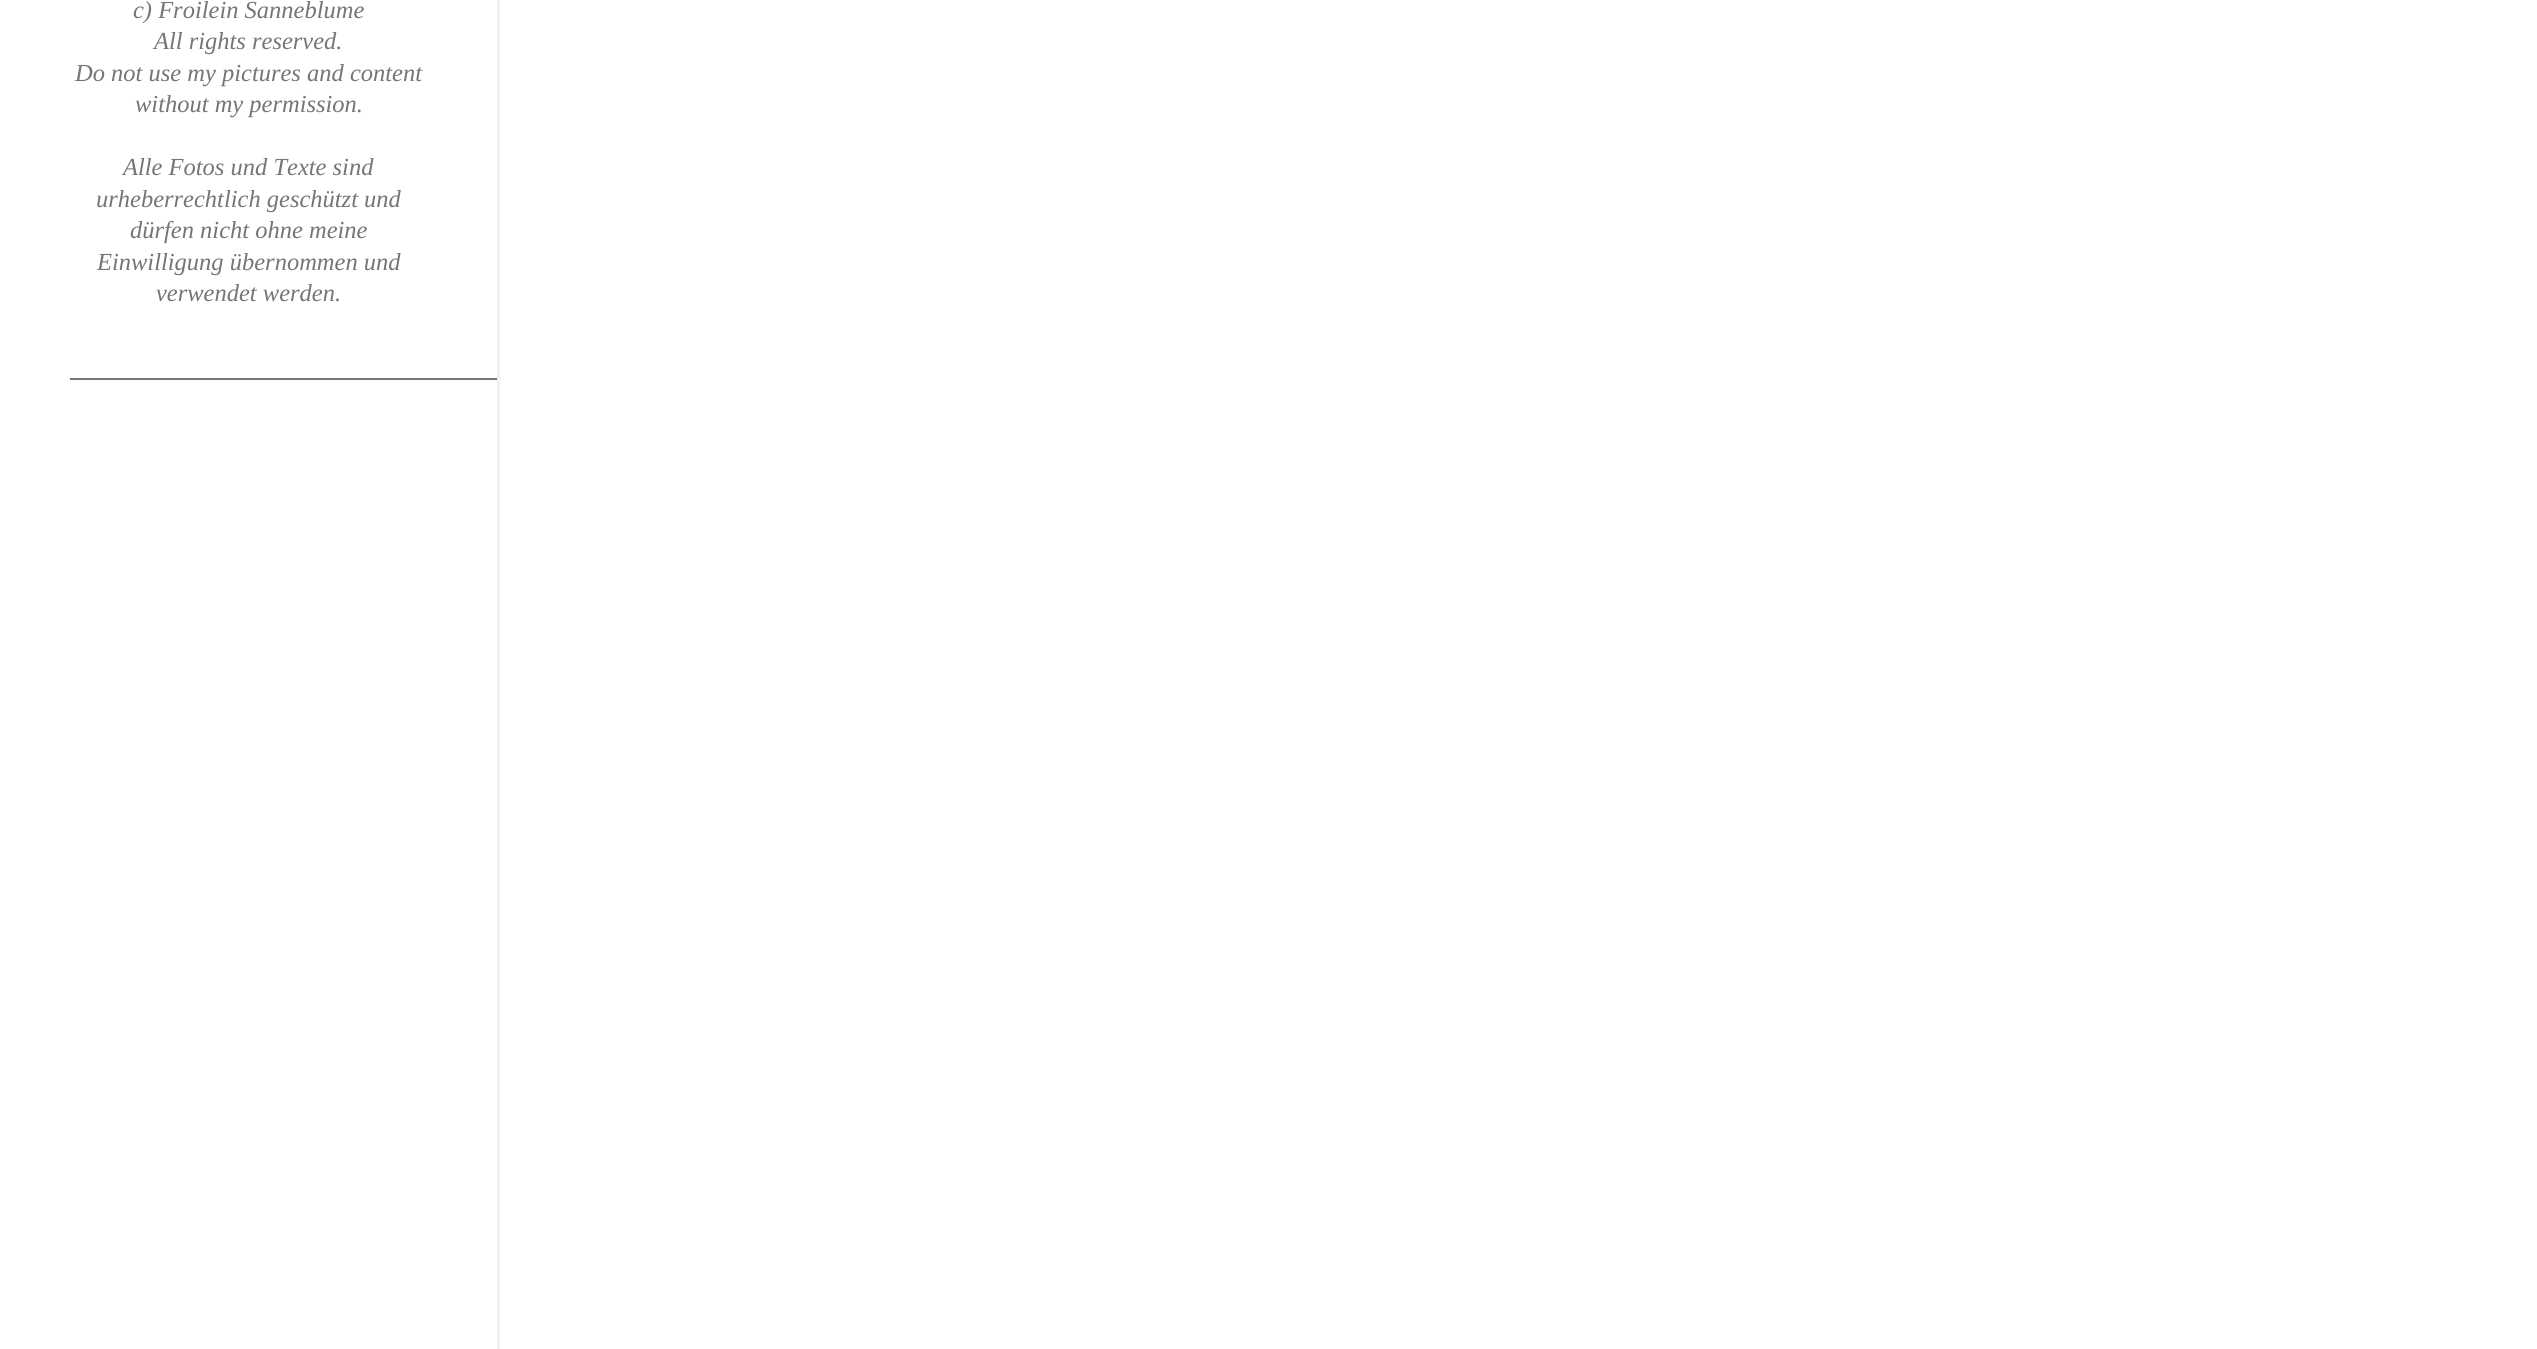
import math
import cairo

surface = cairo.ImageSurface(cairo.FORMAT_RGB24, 2537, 1349)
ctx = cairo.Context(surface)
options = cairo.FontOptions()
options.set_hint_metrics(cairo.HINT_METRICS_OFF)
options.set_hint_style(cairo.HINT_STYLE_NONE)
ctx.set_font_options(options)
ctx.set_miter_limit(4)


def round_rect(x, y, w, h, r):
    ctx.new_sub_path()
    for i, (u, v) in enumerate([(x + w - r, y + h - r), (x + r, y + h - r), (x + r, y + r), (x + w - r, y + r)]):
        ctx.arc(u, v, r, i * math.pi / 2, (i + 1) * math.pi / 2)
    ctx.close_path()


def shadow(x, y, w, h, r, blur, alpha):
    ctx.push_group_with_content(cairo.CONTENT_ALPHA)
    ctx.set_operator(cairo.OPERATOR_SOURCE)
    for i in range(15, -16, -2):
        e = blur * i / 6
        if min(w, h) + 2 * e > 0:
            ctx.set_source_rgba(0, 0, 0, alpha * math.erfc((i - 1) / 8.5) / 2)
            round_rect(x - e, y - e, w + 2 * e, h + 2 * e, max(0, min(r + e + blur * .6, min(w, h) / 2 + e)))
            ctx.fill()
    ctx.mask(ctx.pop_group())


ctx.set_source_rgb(1, 1, 1)
ctx.paint()
ctx.save()
ctx.rectangle(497, 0, 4, 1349)
ctx.clip()
ctx.set_source_rgb(0, 0, 0)
shadow(2, -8, 497, 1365, 0, 2.5, 0.1)
ctx.restore()
ctx.select_font_face("Liberation Serif", cairo.FONT_SLANT_ITALIC)
ctx.set_font_size(24.5)
ctx.set_source_rgb(0.459, 0.459, 0.459)
ctx.move_to(133, 18)
ctx.show_text("c) Froilein Sanneblume")
ctx.move_to(154, 49)
ctx.show_text("All rights reserved.")
ctx.move_to(75, 81)
ctx.show_text("Do not use my pictures and content")
ctx.move_to(135, 112)
ctx.show_text("without my permission.")
ctx.move_to(123, 175)
ctx.show_text("Alle Fotos und Texte sind")
ctx.move_to(96, 207)
ctx.show_text("urheberrechtlich geschützt und")
ctx.move_to(130, 238)
ctx.show_text("dürfen nicht ohne meine")
ctx.move_to(97, 270)
ctx.show_text("Einwilligung übernommen und")
ctx.move_to(156, 301)
ctx.show_text("verwendet werden.")
ctx.rectangle(70, 378, 427, 2)
ctx.fill()
surface.write_to_png("page.png")
